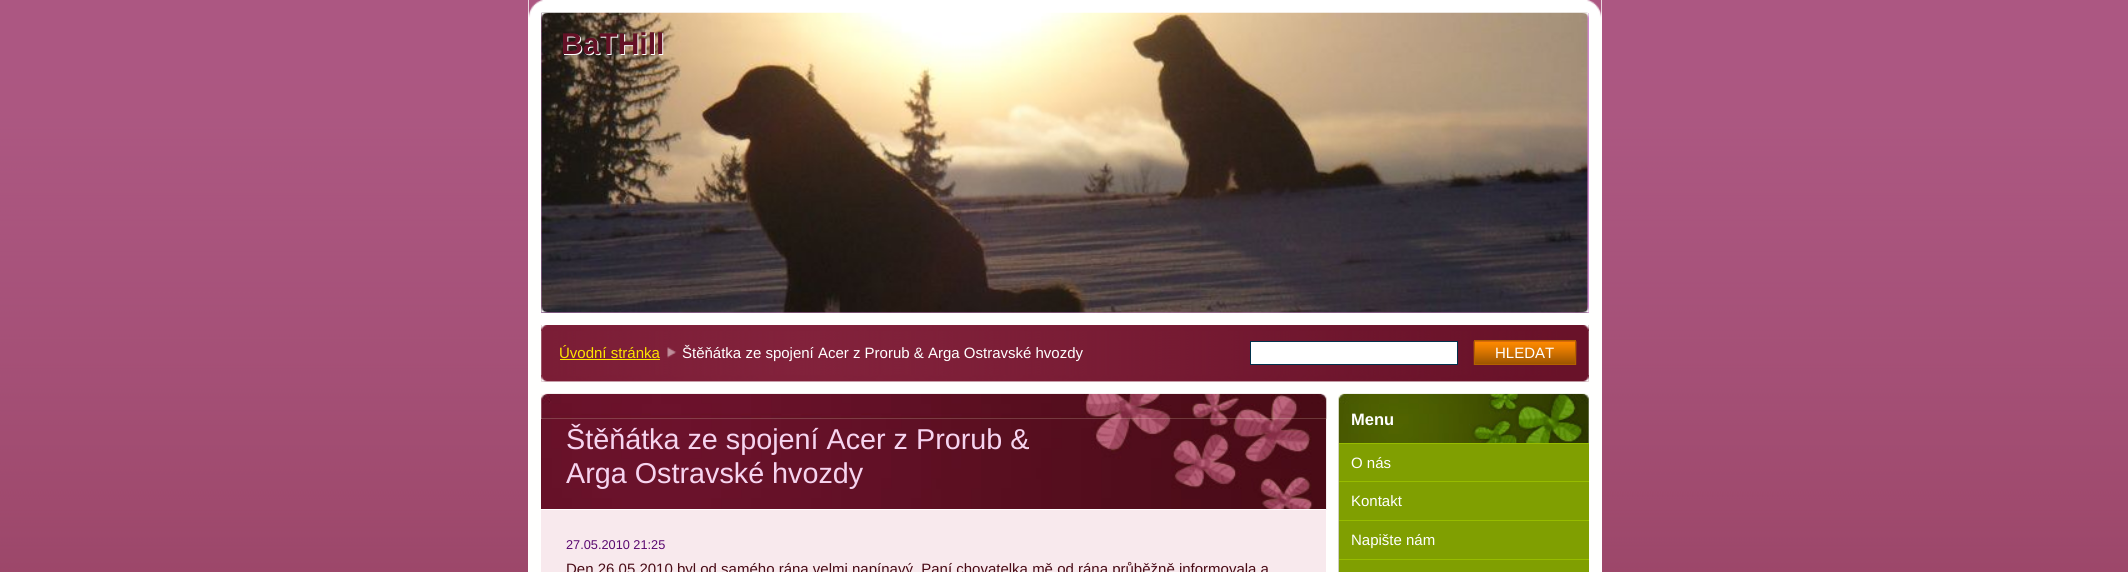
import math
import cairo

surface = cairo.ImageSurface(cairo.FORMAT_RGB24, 2128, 572)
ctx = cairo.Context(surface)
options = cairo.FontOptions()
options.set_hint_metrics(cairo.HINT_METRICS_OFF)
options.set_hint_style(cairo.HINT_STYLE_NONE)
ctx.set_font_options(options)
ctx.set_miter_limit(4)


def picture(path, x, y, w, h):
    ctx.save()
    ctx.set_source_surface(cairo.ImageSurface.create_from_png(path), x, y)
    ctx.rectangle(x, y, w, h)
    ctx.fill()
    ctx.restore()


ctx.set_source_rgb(1, 1, 1)
ctx.paint()
picture("img1.png", 0, 0, 2128, 572)
ctx.set_source_rgb(1, 1, 0.996)
ctx.rectangle(528, 0, 1074, 572)
ctx.fill()
picture("img2.png", 528, 0, 1074, 18)
ctx.set_source_rgb(0.808, 0.525, 0.796)
ctx.rectangle(541, 13, 1048, 300)
ctx.fill()
picture("img3.png", 541, 12, 1047, 301)
picture("img4.png", 541, 12, 1048, 301)
ctx.select_font_face("Liberation Sans", cairo.FONT_SLANT_NORMAL, cairo.FONT_WEIGHT_BOLD)
ctx.set_font_size(30)
ctx.set_source_rgb(1, 1, 1)
ctx.move_to(562, 55)
ctx.show_text("BaTHill")
ctx.set_source_rgb(0.392, 0.067, 0.149)
ctx.move_to(561, 54)
ctx.show_text("BaTHill")
picture("img5.png", 541, 325, 1048, 57)
picture("img6.png", 541, 375, 1048, 7)
picture("img7.png", 541, 325, 1048, 6)
ctx.select_font_face("Liberation Sans")
ctx.set_font_size(15)
ctx.set_source_rgb(1, 0.894, 0)
ctx.move_to(559, 358)
ctx.show_text("Úvodní stránka")
ctx.rectangle(560, 359, 100, 1)
ctx.fill()
picture("img8.png", 667, 347, 10, 11)
ctx.set_source_rgb(1, 1, 1)
ctx.move_to(682, 358)
ctx.show_text("Štěňátka ze spojení Acer z Prorub & Arga Ostravské hvozdy")
ctx.rectangle(1250.5, 341.5, 207, 23)
ctx.fill_preserve()
ctx.set_source_rgb(0, 0.192, 0.298)
ctx.set_line_width(1)
ctx.stroke()
picture("img9.png", 1473, 341, 104, 24)
ctx.rectangle(1474.5, 340.5, 101, 24)
ctx.set_source_rgb(0.698, 0.376, 0)
ctx.stroke()
ctx.set_source_rgb(1, 1, 1)
ctx.move_to(1495, 358)
ctx.show_text("HLEDAT")
ctx.set_source_rgb(0.969, 0.914, 0.929)
ctx.rectangle(541, 394, 785, 178)
ctx.fill()
picture("img10.png", 541, 393, 786, 27)
ctx.set_source_rgb(0.369, 0.059, 0.133)
ctx.rectangle(541, 419, 1, 90)
ctx.fill()
picture("img11.png", 541, 418, 786, 92)
ctx.set_source_rgb(1, 1, 1)
ctx.rectangle(541, 509, 785, 1)
ctx.fill()
ctx.set_font_size(28.75)
ctx.set_source_rgb(0.961, 0.831, 0.937)
ctx.move_to(566, 449)
ctx.show_text("Štěňátka ze spojení Acer z Prorub &")
ctx.move_to(566, 483)
ctx.show_text("Arga Ostravské hvozdy")
ctx.set_font_size(12.75)
ctx.set_source_rgb(0.353, 0.035, 0.439)
ctx.move_to(566, 549)
ctx.show_text("27.05.2010 21:25")
ctx.set_font_size(15)
ctx.set_source_rgb(0.286, 0.043, 0.086)
ctx.move_to(566, 574)
ctx.show_text("Den 26.05.2010 byl od samého rána velmi napínavý. Paní chovatelka mě od rána průběžně informovala a")
picture("img12.png", 1338, 393, 251, 179)
ctx.select_font_face("Liberation Sans", cairo.FONT_SLANT_NORMAL, cairo.FONT_WEIGHT_BOLD)
ctx.set_font_size(16.5)
ctx.set_source_rgb(1, 1, 1)
ctx.move_to(1351, 425)
ctx.show_text("Menu")
ctx.set_source_rgb(0.502, 0.624, 0.004)
ctx.rectangle(1339, 444, 250, 128)
ctx.fill()
ctx.set_source_rgb(0.592, 0.737, 0)
ctx.rectangle(1339, 443, 250, 1)
ctx.fill()
ctx.rectangle(1339, 481, 250, 1)
ctx.fill()
ctx.select_font_face("Liberation Sans")
ctx.set_font_size(15)
ctx.set_source_rgb(1, 1, 1)
ctx.move_to(1351, 468)
ctx.show_text("O nás")
ctx.set_source_rgb(0.592, 0.737, 0)
ctx.rectangle(1339, 520, 250, 1)
ctx.fill()
ctx.set_source_rgb(1, 1, 1)
ctx.move_to(1351, 506)
ctx.show_text("Kontakt")
ctx.set_source_rgb(0.592, 0.737, 0)
ctx.rectangle(1339, 559, 250, 1)
ctx.fill()
ctx.set_source_rgb(1, 1, 1)
ctx.move_to(1351, 545)
ctx.show_text("Napište nám")
surface.write_to_png("page.png")
